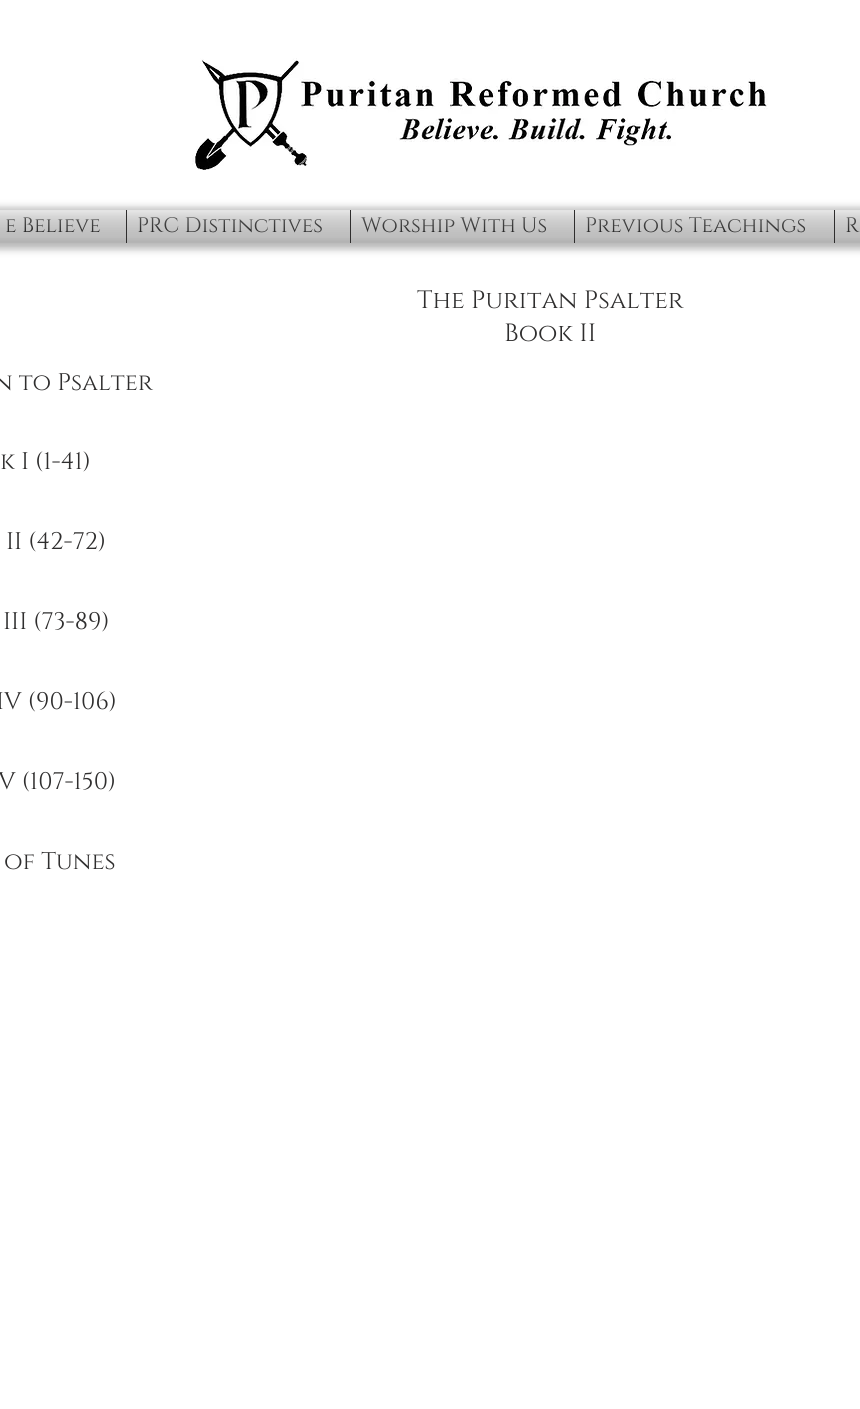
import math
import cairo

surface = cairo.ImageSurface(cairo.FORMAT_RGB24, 860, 1409)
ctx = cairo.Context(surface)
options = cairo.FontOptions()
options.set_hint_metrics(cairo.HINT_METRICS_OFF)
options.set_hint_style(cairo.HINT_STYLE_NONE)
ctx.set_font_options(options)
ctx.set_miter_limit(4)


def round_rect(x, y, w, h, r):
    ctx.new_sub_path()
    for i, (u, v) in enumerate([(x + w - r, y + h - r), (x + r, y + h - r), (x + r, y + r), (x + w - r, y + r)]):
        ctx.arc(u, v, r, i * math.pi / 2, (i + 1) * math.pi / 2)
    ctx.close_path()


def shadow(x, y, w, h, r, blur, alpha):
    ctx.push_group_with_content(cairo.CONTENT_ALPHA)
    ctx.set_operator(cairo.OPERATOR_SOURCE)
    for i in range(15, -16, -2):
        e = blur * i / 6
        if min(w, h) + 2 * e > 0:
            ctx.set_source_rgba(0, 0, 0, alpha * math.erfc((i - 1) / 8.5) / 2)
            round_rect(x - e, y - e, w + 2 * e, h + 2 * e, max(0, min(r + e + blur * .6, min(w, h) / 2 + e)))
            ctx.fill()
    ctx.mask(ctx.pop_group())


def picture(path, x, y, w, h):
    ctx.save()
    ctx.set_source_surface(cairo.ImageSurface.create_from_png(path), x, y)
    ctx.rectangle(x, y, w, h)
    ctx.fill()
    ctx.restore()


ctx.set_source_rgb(1, 1, 1)
ctx.paint()
picture("img1.png", 192, 58, 576, 112)
ctx.set_source_rgb(0, 0, 0)
shadow(-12, 208, 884, 41, 0, 4, 0.29)
ctx.set_source_rgb(0.8, 0.8, 0.8)
ctx.rectangle(0, 210, 126, 33)
ctx.fill()
ctx.select_font_face("Cinzel")
ctx.set_font_size(21)
ctx.set_source_rgb(0, 0, 0)
ctx.move_to(5, 232)
ctx.show_text("e Believe")
picture("img2.png", 0, 210, 126, 33)
picture("img3.png", 0, 210, 126, 33)
ctx.set_source_rgb(0.8, 0.8, 0.8)
ctx.rectangle(127, 210, 223, 33)
ctx.fill()
ctx.set_source_rgb(0.184, 0.18, 0.18)
ctx.rectangle(126, 210, 1, 33)
ctx.fill()
ctx.set_source_rgb(0, 0, 0)
ctx.move_to(137, 232)
ctx.show_text("PRC Distinctives")
picture("img4.png", 127, 210, 223, 33)
picture("img5.png", 127, 210, 223, 33)
ctx.set_source_rgb(0.8, 0.8, 0.8)
ctx.rectangle(351, 210, 223, 33)
ctx.fill()
ctx.set_source_rgb(0.184, 0.18, 0.18)
ctx.rectangle(350, 210, 1, 33)
ctx.fill()
ctx.set_source_rgb(0, 0, 0)
ctx.move_to(361, 232)
ctx.show_text("Worship With Us")
picture("img6.png", 351, 210, 223, 33)
picture("img7.png", 351, 210, 223, 33)
ctx.set_source_rgb(0.8, 0.8, 0.8)
ctx.rectangle(575, 210, 259, 33)
ctx.fill()
ctx.set_source_rgb(0.184, 0.18, 0.18)
ctx.rectangle(574, 210, 1, 33)
ctx.fill()
ctx.set_source_rgb(0, 0, 0)
ctx.move_to(585, 232)
ctx.show_text("Previous Teachings")
picture("img8.png", 575, 210, 259, 33)
picture("img9.png", 575, 210, 259, 33)
ctx.set_source_rgb(0.8, 0.8, 0.8)
ctx.rectangle(835, 210, 25, 33)
ctx.fill()
ctx.set_source_rgb(0.184, 0.18, 0.18)
ctx.rectangle(834, 210, 1, 33)
ctx.fill()
ctx.set_source_rgb(0, 0, 0)
ctx.move_to(845, 232)
ctx.show_text("R")
picture("img10.png", 835, 210, 25, 33)
picture("img11.png", 835, 210, 25, 33)
ctx.set_font_size(25)
ctx.set_source_rgb(0.184, 0.18, 0.18)
ctx.move_to(417, 308)
ctx.show_text("The Puritan Psalter")
ctx.move_to(504, 341)
ctx.show_text("Book II")
ctx.set_font_size(24)
ctx.move_to(-6, 390)
ctx.show_text("n to Psalter")
ctx.move_to(0, 469)
ctx.show_text("k I (1-41)")
ctx.move_to(6, 549)
ctx.show_text("II (42-72)")
ctx.move_to(3, 629)
ctx.show_text("III (73-89)")
ctx.move_to(-4, 709)
ctx.show_text("IV (90-106)")
ctx.move_to(-2, 789)
ctx.show_text("V (107-150)")
ctx.move_to(4, 869)
ctx.show_text("of Tunes")
surface.write_to_png("page.png")
